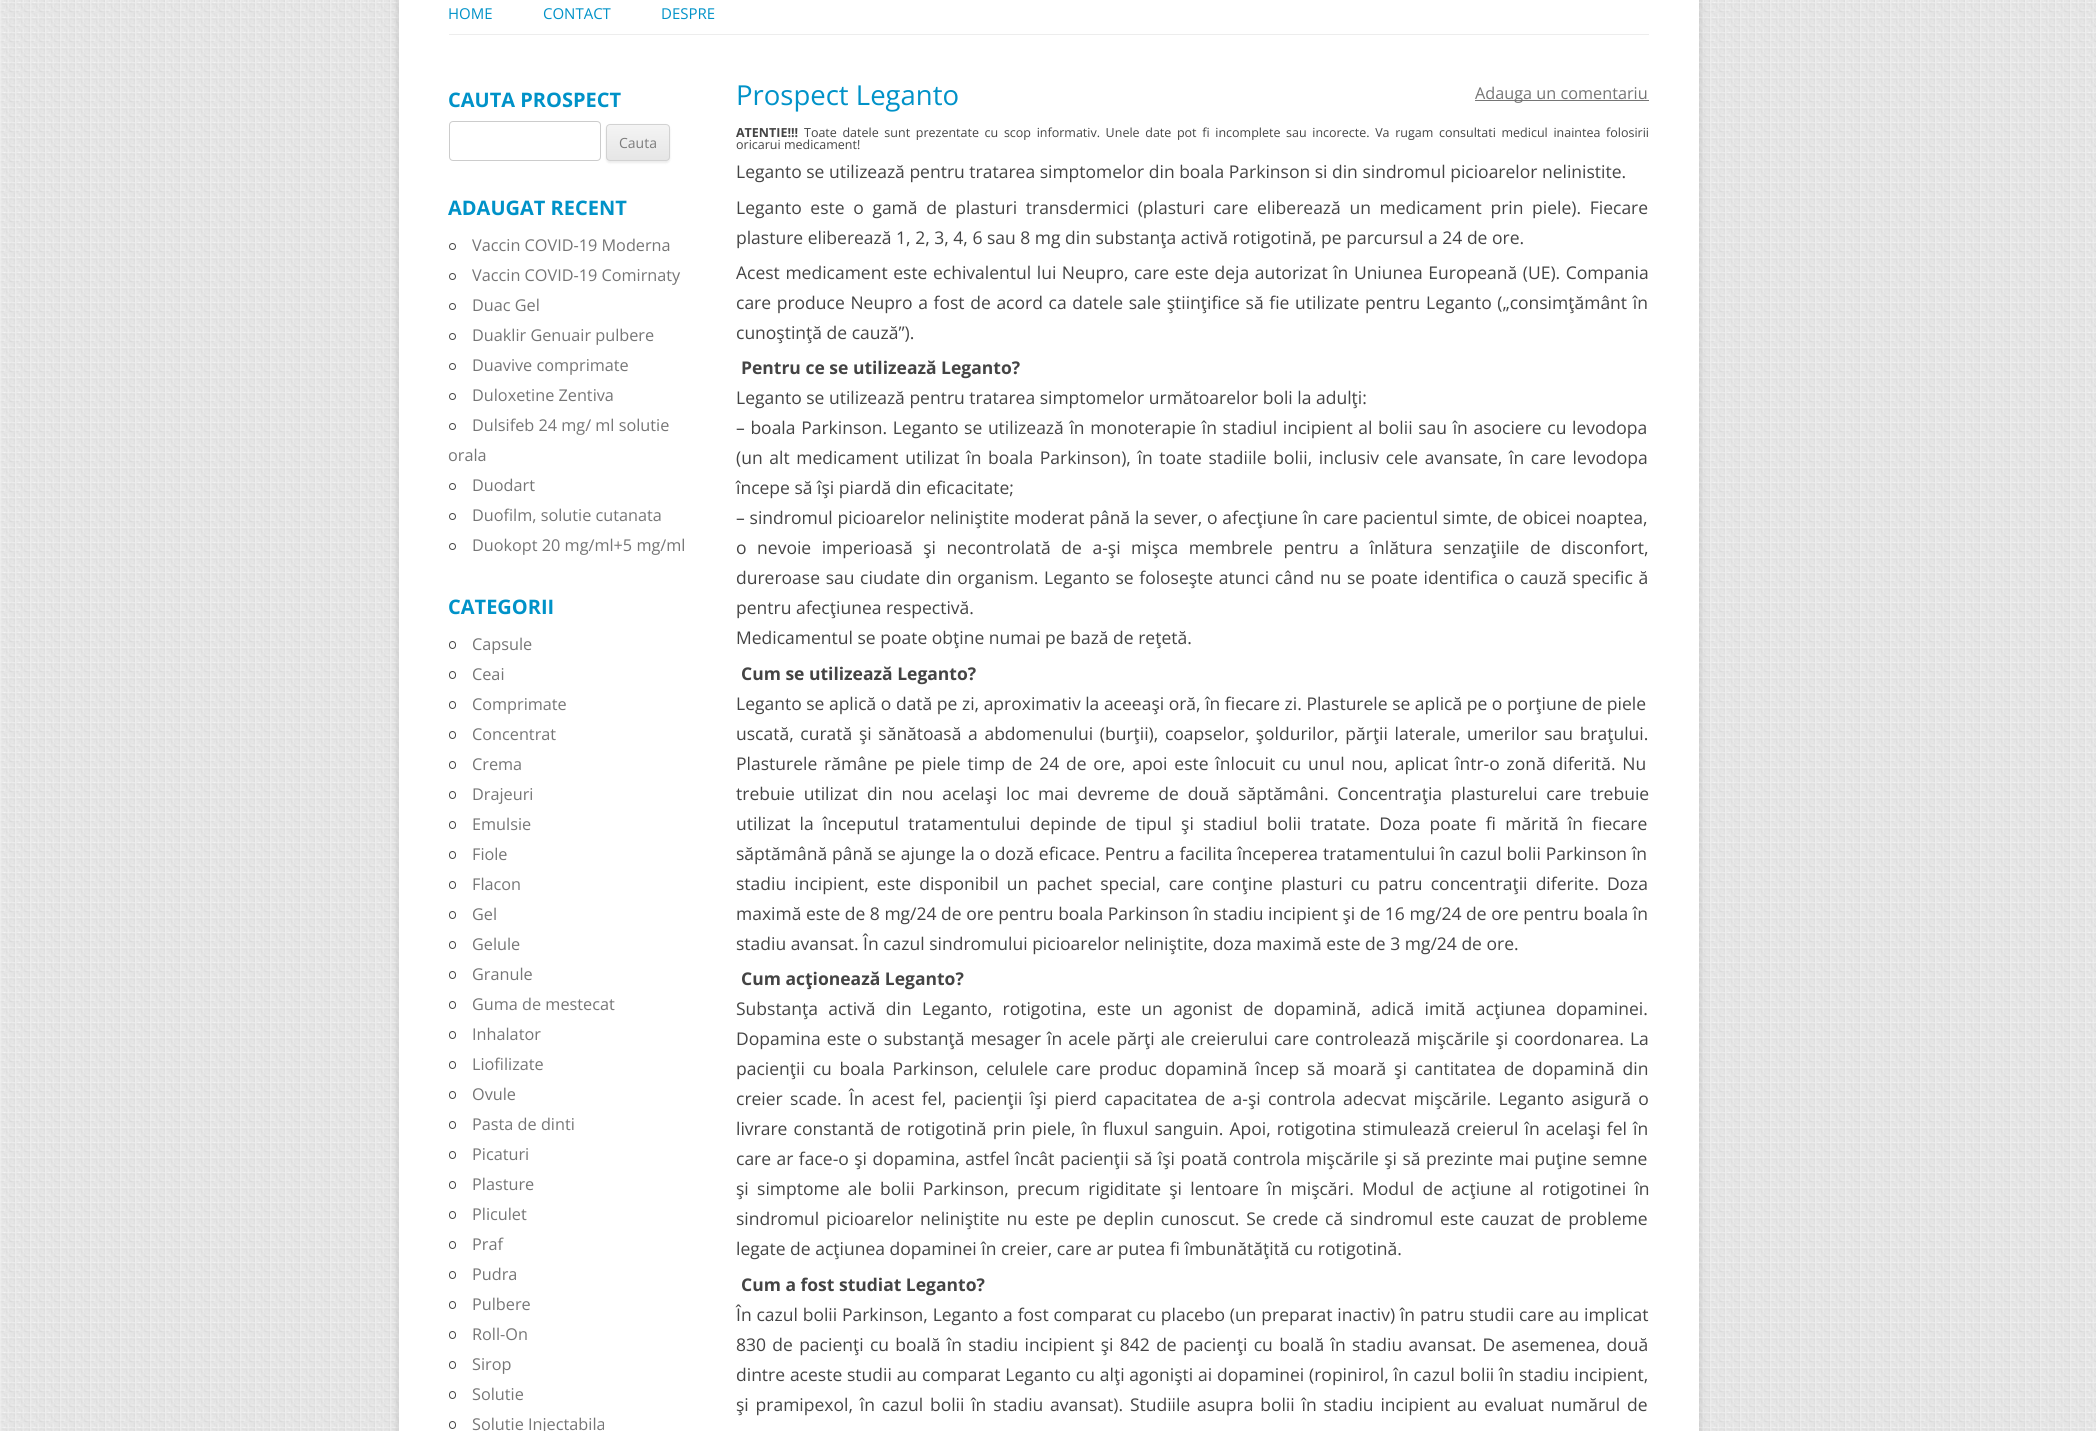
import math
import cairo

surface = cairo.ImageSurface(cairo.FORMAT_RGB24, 2096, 1431)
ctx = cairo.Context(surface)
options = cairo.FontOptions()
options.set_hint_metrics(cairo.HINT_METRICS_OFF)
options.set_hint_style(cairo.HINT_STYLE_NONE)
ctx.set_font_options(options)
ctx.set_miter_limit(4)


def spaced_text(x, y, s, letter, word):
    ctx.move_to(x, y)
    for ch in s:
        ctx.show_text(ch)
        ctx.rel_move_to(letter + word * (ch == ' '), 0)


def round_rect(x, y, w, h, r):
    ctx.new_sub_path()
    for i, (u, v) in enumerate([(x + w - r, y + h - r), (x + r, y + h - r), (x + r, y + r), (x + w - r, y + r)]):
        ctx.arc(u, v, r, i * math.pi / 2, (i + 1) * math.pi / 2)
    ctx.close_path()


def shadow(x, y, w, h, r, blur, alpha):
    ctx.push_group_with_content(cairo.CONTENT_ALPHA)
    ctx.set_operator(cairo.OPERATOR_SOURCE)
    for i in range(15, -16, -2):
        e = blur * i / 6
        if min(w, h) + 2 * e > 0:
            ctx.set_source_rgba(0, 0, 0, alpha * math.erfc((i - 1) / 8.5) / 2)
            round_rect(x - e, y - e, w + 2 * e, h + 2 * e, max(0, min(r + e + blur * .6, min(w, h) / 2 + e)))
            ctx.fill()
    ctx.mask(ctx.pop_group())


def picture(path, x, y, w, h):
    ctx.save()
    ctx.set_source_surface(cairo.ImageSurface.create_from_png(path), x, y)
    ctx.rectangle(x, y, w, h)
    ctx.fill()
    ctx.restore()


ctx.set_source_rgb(1, 1, 1)
ctx.paint()
picture("img1.png", 0, 0, 2096, 1431)
ctx.set_source_rgb(0.392, 0.392, 0.392)
shadow(399, -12, 1300, 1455, 0, 4, 0.3)
ctx.set_source_rgb(1, 1, 1)
ctx.rectangle(399, 0, 1300, 1431)
ctx.fill()
ctx.set_source_rgb(0.929, 0.929, 0.929)
ctx.rectangle(449, 34, 1200, 1)
ctx.fill()
ctx.select_font_face("Open Sans")
ctx.set_font_size(15)
ctx.set_source_rgb(0, 0.573, 0.784)
ctx.move_to(448, 19)
ctx.show_text("HOME")
ctx.move_to(543, 19)
ctx.show_text("CONTACT")
ctx.move_to(661, 19)
ctx.show_text("DESPRE")
ctx.select_font_face("Open Sans", cairo.FONT_SLANT_NORMAL, cairo.FONT_WEIGHT_BOLD)
ctx.set_font_size(20)
ctx.move_to(448, 107)
ctx.show_text("CAUTA PROSPECT")
round_rect(449.5, 121.5, 151, 39, 3.5)
ctx.set_source_rgb(0.8, 0.8, 0.8)
ctx.set_line_width(1)
ctx.stroke()
ctx.set_source_rgb(0.251, 0.251, 0.251)
shadow(606, 125, 64, 38, 4, 1, 0.1)
ctx.save()
round_rect(606, 124, 64, 37, 4)
ctx.clip()
gradient = cairo.LinearGradient(638, 125, 638, 160)
gradient.add_color_stop_rgba(0, 0.957, 0.957, 0.957, 1)
gradient.add_color_stop_rgba(1, 0.902, 0.902, 0.902, 1)
ctx.set_source(gradient)
ctx.rectangle(606, 125, 64, 35)
ctx.fill()
ctx.restore()
round_rect(606.5, 124.5, 63, 36, 3.5)
ctx.set_source_rgb(0.824, 0.824, 0.824)
ctx.stroke()
ctx.select_font_face("Open Sans")
ctx.set_font_size(14)
ctx.set_source_rgb(0.486, 0.486, 0.486)
ctx.move_to(619, 148)
ctx.show_text("Cauta")
ctx.select_font_face("Open Sans", cairo.FONT_SLANT_NORMAL, cairo.FONT_WEIGHT_BOLD)
ctx.set_font_size(20)
ctx.set_source_rgb(0, 0.573, 0.784)
ctx.move_to(448, 215)
ctx.show_text("ADAUGAT RECENT")
ctx.new_path()
ctx.arc(452.5, 246.5, 3, 0, 2 * math.pi)
ctx.set_source_rgb(0.267, 0.267, 0.267)
ctx.stroke()
ctx.select_font_face("Open Sans")
ctx.set_font_size(16.25)
ctx.set_source_rgb(0.459, 0.459, 0.459)
ctx.move_to(472, 251)
ctx.show_text("Vaccin COVID-19 Moderna")
ctx.new_path()
ctx.arc(452.5, 276.5, 3, 0, 2 * math.pi)
ctx.set_source_rgb(0.267, 0.267, 0.267)
ctx.stroke()
ctx.set_source_rgb(0.459, 0.459, 0.459)
ctx.move_to(472, 281)
ctx.show_text("Vaccin COVID-19 Comirnaty")
ctx.new_path()
ctx.arc(452.5, 306.5, 3, 0, 2 * math.pi)
ctx.set_source_rgb(0.267, 0.267, 0.267)
ctx.stroke()
ctx.set_source_rgb(0.459, 0.459, 0.459)
ctx.move_to(472, 311)
ctx.show_text("Duac Gel")
ctx.new_path()
ctx.arc(452.5, 336.5, 3, 0, 2 * math.pi)
ctx.set_source_rgb(0.267, 0.267, 0.267)
ctx.stroke()
ctx.set_source_rgb(0.459, 0.459, 0.459)
ctx.move_to(472, 341)
ctx.show_text("Duaklir Genuair pulbere")
ctx.new_path()
ctx.arc(452.5, 366.5, 3, 0, 2 * math.pi)
ctx.set_source_rgb(0.267, 0.267, 0.267)
ctx.stroke()
ctx.set_source_rgb(0.459, 0.459, 0.459)
ctx.move_to(472, 371)
ctx.show_text("Duavive comprimate")
ctx.new_path()
ctx.arc(452.5, 396.5, 3, 0, 2 * math.pi)
ctx.set_source_rgb(0.267, 0.267, 0.267)
ctx.stroke()
ctx.set_source_rgb(0.459, 0.459, 0.459)
ctx.move_to(472, 401)
ctx.show_text("Duloxetine Zentiva")
ctx.new_path()
ctx.arc(452.5, 426.5, 3, 0, 2 * math.pi)
ctx.set_source_rgb(0.267, 0.267, 0.267)
ctx.stroke()
ctx.set_source_rgb(0.459, 0.459, 0.459)
ctx.move_to(472, 431)
ctx.show_text("Dulsifeb 24 mg/ ml solutie")
ctx.move_to(448, 461)
ctx.show_text("orala")
ctx.new_path()
ctx.arc(452.5, 486.5, 3, 0, 2 * math.pi)
ctx.set_source_rgb(0.267, 0.267, 0.267)
ctx.stroke()
ctx.set_source_rgb(0.459, 0.459, 0.459)
ctx.move_to(472, 491)
ctx.show_text("Duodart")
ctx.new_path()
ctx.arc(452.5, 516.5, 3, 0, 2 * math.pi)
ctx.set_source_rgb(0.267, 0.267, 0.267)
ctx.stroke()
ctx.set_source_rgb(0.459, 0.459, 0.459)
ctx.move_to(472, 521)
ctx.show_text("Duofilm, solutie cutanata")
ctx.new_path()
ctx.arc(452.5, 546.5, 3, 0, 2 * math.pi)
ctx.set_source_rgb(0.267, 0.267, 0.267)
ctx.stroke()
ctx.set_source_rgb(0.459, 0.459, 0.459)
ctx.move_to(472, 551)
ctx.show_text("Duokopt 20 mg/ml+5 mg/ml")
ctx.select_font_face("Open Sans", cairo.FONT_SLANT_NORMAL, cairo.FONT_WEIGHT_BOLD)
ctx.set_font_size(20)
ctx.set_source_rgb(0, 0.573, 0.784)
ctx.move_to(448, 614)
ctx.show_text("CATEGORII")
round_rect(449.5, 641.5, 6, 7, 3)
ctx.set_source_rgb(0.267, 0.267, 0.267)
ctx.stroke()
ctx.select_font_face("Open Sans")
ctx.set_font_size(16.25)
ctx.set_source_rgb(0.459, 0.459, 0.459)
ctx.move_to(472, 650)
ctx.show_text("Capsule")
round_rect(449.5, 671.5, 6, 7, 3)
ctx.set_source_rgb(0.267, 0.267, 0.267)
ctx.stroke()
ctx.set_source_rgb(0.459, 0.459, 0.459)
ctx.move_to(472, 680)
ctx.show_text("Ceai")
round_rect(449.5, 701.5, 6, 7, 3)
ctx.set_source_rgb(0.267, 0.267, 0.267)
ctx.stroke()
ctx.set_source_rgb(0.459, 0.459, 0.459)
ctx.move_to(472, 710)
ctx.show_text("Comprimate")
round_rect(449.5, 731.5, 6, 7, 3)
ctx.set_source_rgb(0.267, 0.267, 0.267)
ctx.stroke()
ctx.set_source_rgb(0.459, 0.459, 0.459)
ctx.move_to(472, 740)
ctx.show_text("Concentrat")
round_rect(449.5, 761.5, 6, 7, 3)
ctx.set_source_rgb(0.267, 0.267, 0.267)
ctx.stroke()
ctx.set_source_rgb(0.459, 0.459, 0.459)
ctx.move_to(472, 770)
ctx.show_text("Crema")
round_rect(449.5, 791.5, 6, 7, 3)
ctx.set_source_rgb(0.267, 0.267, 0.267)
ctx.stroke()
ctx.set_source_rgb(0.459, 0.459, 0.459)
ctx.move_to(472, 800)
ctx.show_text("Drajeuri")
round_rect(449.5, 821.5, 6, 7, 3)
ctx.set_source_rgb(0.267, 0.267, 0.267)
ctx.stroke()
ctx.set_source_rgb(0.459, 0.459, 0.459)
ctx.move_to(472, 830)
ctx.show_text("Emulsie")
round_rect(449.5, 851.5, 6, 7, 3)
ctx.set_source_rgb(0.267, 0.267, 0.267)
ctx.stroke()
ctx.set_source_rgb(0.459, 0.459, 0.459)
ctx.move_to(472, 860)
ctx.show_text("Fiole")
round_rect(449.5, 881.5, 6, 7, 3)
ctx.set_source_rgb(0.267, 0.267, 0.267)
ctx.stroke()
ctx.set_source_rgb(0.459, 0.459, 0.459)
ctx.move_to(472, 890)
ctx.show_text("Flacon")
round_rect(449.5, 911.5, 6, 7, 3)
ctx.set_source_rgb(0.267, 0.267, 0.267)
ctx.stroke()
ctx.set_source_rgb(0.459, 0.459, 0.459)
ctx.move_to(472, 920)
ctx.show_text("Gel")
round_rect(449.5, 941.5, 6, 7, 3)
ctx.set_source_rgb(0.267, 0.267, 0.267)
ctx.stroke()
ctx.set_source_rgb(0.459, 0.459, 0.459)
ctx.move_to(472, 950)
ctx.show_text("Gelule")
round_rect(449.5, 971.5, 6, 7, 3)
ctx.set_source_rgb(0.267, 0.267, 0.267)
ctx.stroke()
ctx.set_source_rgb(0.459, 0.459, 0.459)
ctx.move_to(472, 980)
ctx.show_text("Granule")
round_rect(449.5, 1001.5, 6, 7, 3)
ctx.set_source_rgb(0.267, 0.267, 0.267)
ctx.stroke()
ctx.set_source_rgb(0.459, 0.459, 0.459)
ctx.move_to(472, 1010)
ctx.show_text("Guma de mestecat")
round_rect(449.5, 1031.5, 6, 7, 3)
ctx.set_source_rgb(0.267, 0.267, 0.267)
ctx.stroke()
ctx.set_source_rgb(0.459, 0.459, 0.459)
ctx.move_to(472, 1040)
ctx.show_text("Inhalator")
round_rect(449.5, 1061.5, 6, 7, 3)
ctx.set_source_rgb(0.267, 0.267, 0.267)
ctx.stroke()
ctx.set_source_rgb(0.459, 0.459, 0.459)
ctx.move_to(472, 1070)
ctx.show_text("Liofilizate")
round_rect(449.5, 1091.5, 6, 7, 3)
ctx.set_source_rgb(0.267, 0.267, 0.267)
ctx.stroke()
ctx.set_source_rgb(0.459, 0.459, 0.459)
ctx.move_to(472, 1100)
ctx.show_text("Ovule")
round_rect(449.5, 1121.5, 6, 7, 3)
ctx.set_source_rgb(0.267, 0.267, 0.267)
ctx.stroke()
ctx.set_source_rgb(0.459, 0.459, 0.459)
ctx.move_to(472, 1130)
ctx.show_text("Pasta de dinti")
round_rect(449.5, 1151.5, 6, 7, 3)
ctx.set_source_rgb(0.267, 0.267, 0.267)
ctx.stroke()
ctx.set_source_rgb(0.459, 0.459, 0.459)
ctx.move_to(472, 1160)
ctx.show_text("Picaturi")
round_rect(449.5, 1181.5, 6, 7, 3)
ctx.set_source_rgb(0.267, 0.267, 0.267)
ctx.stroke()
ctx.set_source_rgb(0.459, 0.459, 0.459)
ctx.move_to(472, 1190)
ctx.show_text("Plasture")
round_rect(449.5, 1211.5, 6, 7, 3)
ctx.set_source_rgb(0.267, 0.267, 0.267)
ctx.stroke()
ctx.set_source_rgb(0.459, 0.459, 0.459)
ctx.move_to(472, 1220)
ctx.show_text("Pliculet")
round_rect(449.5, 1241.5, 6, 7, 3)
ctx.set_source_rgb(0.267, 0.267, 0.267)
ctx.stroke()
ctx.set_source_rgb(0.459, 0.459, 0.459)
ctx.move_to(472, 1250)
ctx.show_text("Praf")
round_rect(449.5, 1271.5, 6, 7, 3)
ctx.set_source_rgb(0.267, 0.267, 0.267)
ctx.stroke()
ctx.set_source_rgb(0.459, 0.459, 0.459)
ctx.move_to(472, 1280)
ctx.show_text("Pudra")
round_rect(449.5, 1301.5, 6, 7, 3)
ctx.set_source_rgb(0.267, 0.267, 0.267)
ctx.stroke()
ctx.set_source_rgb(0.459, 0.459, 0.459)
ctx.move_to(472, 1310)
ctx.show_text("Pulbere")
round_rect(449.5, 1331.5, 6, 7, 3)
ctx.set_source_rgb(0.267, 0.267, 0.267)
ctx.stroke()
ctx.set_source_rgb(0.459, 0.459, 0.459)
ctx.move_to(472, 1340)
ctx.show_text("Roll-On")
round_rect(449.5, 1361.5, 6, 7, 3)
ctx.set_source_rgb(0.267, 0.267, 0.267)
ctx.stroke()
ctx.set_source_rgb(0.459, 0.459, 0.459)
ctx.move_to(472, 1370)
ctx.show_text("Sirop")
round_rect(449.5, 1391.5, 6, 7, 3)
ctx.set_source_rgb(0.267, 0.267, 0.267)
ctx.stroke()
ctx.set_source_rgb(0.459, 0.459, 0.459)
ctx.move_to(472, 1400)
ctx.show_text("Solutie")
round_rect(449.5, 1421.5, 6, 7, 3)
ctx.set_source_rgb(0.267, 0.267, 0.267)
ctx.stroke()
ctx.set_source_rgb(0.459, 0.459, 0.459)
ctx.move_to(472, 1430)
ctx.show_text("Solutie Injectabila")
ctx.set_font_size(27.5)
ctx.set_source_rgb(0, 0.573, 0.784)
ctx.move_to(736, 105)
ctx.show_text("Prospect Leganto")
ctx.set_source_rgb(0.459, 0.459, 0.459)
ctx.rectangle(1475, 100, 174, 1)
ctx.fill()
ctx.set_font_size(16.25)
ctx.move_to(1475, 99)
ctx.show_text("Adauga un comentariu")
ctx.select_font_face("Open Sans", cairo.FONT_SLANT_NORMAL, cairo.FONT_WEIGHT_BOLD)
ctx.set_font_size(12.5)
ctx.set_source_rgb(0.267, 0.267, 0.267)
ctx.move_to(736, 137)
ctx.show_text("ATENTIE!!!")
ctx.select_font_face("Open Sans")
spaced_text(804, 137, "Toate datele sunt prezentate cu scop informativ. Unele date pot fi incomplete sau incorecte. Va rugam consultati medicul inaintea folosirii", 0, 2.4)
ctx.move_to(736, 149)
ctx.show_text("oricarui medicament!")
ctx.set_font_size(17.5)
ctx.move_to(736, 178)
ctx.show_text("Leganto se utilizează pentru tratarea simptomelor din boala Parkinson si din sindromul picioarelor nelinistite.")
spaced_text(736, 214, "Leganto este o gamă de plasturi transdermici (plasturi care eliberează un medicament prin piele). Fiecare", 0, 4.1)
ctx.move_to(736, 244)
ctx.show_text("plasture eliberează 1, 2, 3, 4, 6 sau 8 mg din substanţa activă rotigotină, pe parcursul a 24 de ore.")
spaced_text(736, 279, "Acest medicament este echivalentul lui Neupro, care este deja autorizat în Uniunea Europeană (UE). Compania", 0, 1)
spaced_text(736, 309, "care produce Neupro a fost de acord ca datele sale ştiinţifice să fie utilizate pentru Leganto („consimţământ în", 0, 1.1)
ctx.move_to(736, 339)
ctx.show_text("cunoştinţă de cauză”).")
ctx.select_font_face("Open Sans", cairo.FONT_SLANT_NORMAL, cairo.FONT_WEIGHT_BOLD)
ctx.move_to(741, 374)
ctx.show_text("Pentru ce se utilizează Leganto?")
ctx.select_font_face("Open Sans")
ctx.move_to(736, 404)
ctx.show_text("Leganto se utilizează pentru tratarea simptomelor următoarelor boli la adulţi:")
spaced_text(736, 434, "– boala Parkinson. Leganto se utilizează în monoterapie în stadiul incipient al bolii sau în asociere cu levodopa", 0, 1.1)
spaced_text(736, 464, "(un alt medicament utilizat în boala Parkinson), în toate stadiile bolii, inclusiv cele avansate, în care levodopa", 0, 2.1)
ctx.move_to(736, 494)
ctx.show_text("începe să îşi piardă din eficacitate;")
spaced_text(736, 524, "– sindromul picioarelor neliniştite moderat până la sever, o afecţiune în care pacientul simte, de obicei noaptea,", 0, 0.25)
spaced_text(736, 554, "o nevoie imperioasă şi necontrolată de a-şi mişca membrele pentru a înlătura senzaţiile de disconfort,", 0, 6)
spaced_text(736, 584, "dureroase sau ciudate din organism. Leganto se foloseşte atunci când nu se poate identifica o cauză specific ă", 0, 1.1)
ctx.move_to(736, 614)
ctx.show_text("pentru afecţiunea respectivă.")
ctx.move_to(736, 644)
ctx.show_text("Medicamentul se poate obţine numai pe bază de reţetă.")
ctx.select_font_face("Open Sans", cairo.FONT_SLANT_NORMAL, cairo.FONT_WEIGHT_BOLD)
ctx.move_to(741, 680)
ctx.show_text("Cum se utilizează Leganto?")
ctx.select_font_face("Open Sans")
ctx.move_to(736, 710)
ctx.show_text("Leganto se aplică o dată pe zi, aproximativ la aceeaşi oră, în fiecare zi. Plasturele se aplică pe o porţiune de piele")
spaced_text(736, 740, "uscată, curată şi sănătoasă a abdomenului (burţii), coapselor, şoldurilor, părţii laterale, umerilor sau braţului.", 0, 2.1)
spaced_text(736, 770, "Plasturele rămâne pe piele timp de 24 de ore, apoi este înlocuit cu unul nou, aplicat într-o zonă diferită. Nu", 0, 2.25)
spaced_text(736, 800, "trebuie utilizat din nou acelaşi loc mai devreme de două săptămâni. Concentraţia plasturelui care trebuie", 0, 4.25)
spaced_text(736, 830, "utilizat la începutul tratamentului depinde de tipul şi stadiul bolii tratate. Doza poate fi mărită în fiecare", 0, 4.6)
spaced_text(736, 860, "săptămână până se ajunge la o doză eficace. Pentru a facilita începerea tratamentului în cazul bolii Parkinson în", 0, 0.3)
spaced_text(736, 890, "stadiu incipient, este disponibil un pachet special, care conţine plasturi cu patru concentraţii diferite. Doza", 0, 3.6)
ctx.move_to(736, 920)
ctx.show_text("maximă este de 8 mg/24 de ore pentru boala Parkinson în stadiu incipient şi de 16 mg/24 de ore pentru boala în")
ctx.move_to(736, 950)
ctx.show_text("stadiu avansat. În cazul sindromului picioarelor neliniştite, doza maximă este de 3 mg/24 de ore.")
ctx.select_font_face("Open Sans", cairo.FONT_SLANT_NORMAL, cairo.FONT_WEIGHT_BOLD)
ctx.move_to(741, 985)
ctx.show_text("Cum acţionează Leganto?")
ctx.select_font_face("Open Sans")
spaced_text(736, 1015, "Substanţa activă din Leganto, rotigotina, este un agonist de dopamină, adică imită acţiunea dopaminei.", 0, 5.75)
spaced_text(736, 1045, "Dopamina este o substanţă mesager în acele părţi ale creierului care controlează mişcările şi coordonarea. La", 0, 1.5)
spaced_text(736, 1075, "pacienţii cu boala Parkinson, celulele care produc dopamină încep să moară şi cantitatea de dopamină din", 0, 3.25)
spaced_text(736, 1105, "creier scade. În acest fel, pacienţii îşi pierd capacitatea de a-şi controla adecvat mişcările. Leganto asigură o", 0, 2.75)
spaced_text(736, 1135, "livrare constantă de rotigotină prin piele, în fluxul sanguin. Apoi, rotigotina stimulează creierul în acelaşi fel în", 0, 1.6)
spaced_text(736, 1165, "care ar face-o şi dopamina, astfel încât pacienţii să îşi poată controla mişcările şi să prezinte mai puţine semne", 0, 0.9)
spaced_text(736, 1195, "şi simptome ale bolii Parkinson, precum rigiditate şi lentoare în mişcări. Modul de acţiune al rotigotinei în", 0, 3.75)
spaced_text(736, 1225, "sindromul picioarelor neliniştite nu este pe deplin cunoscut. Se crede că sindromul este cauzat de probleme", 0, 2.25)
ctx.move_to(736, 1255)
ctx.show_text("legate de acţiunea dopaminei în creier, care ar putea fi îmbunătăţită cu rotigotină.")
ctx.select_font_face("Open Sans", cairo.FONT_SLANT_NORMAL, cairo.FONT_WEIGHT_BOLD)
ctx.move_to(741, 1291)
ctx.show_text("Cum a fost studiat Leganto?")
ctx.select_font_face("Open Sans")
spaced_text(736, 1321, "În cazul bolii Parkinson, Leganto a fost comparat cu placebo (un preparat inactiv) în patru studii care au implicat", 0, 0.25)
spaced_text(736, 1351, "830 de pacienţi cu boală în stadiu incipient şi 842 de pacienţi cu boală în stadiu avansat. De asemenea, două", 0, 1.75)
spaced_text(736, 1381, "dintre aceste studii au comparat Leganto cu alţi agonişti ai dopaminei (ropinirol, în cazul bolii în stadiu incipient,", 0, 0.25)
spaced_text(736, 1411, "şi pramipexol, în cazul bolii în stadiu avansat). Studiile asupra bolii în stadiu incipient au evaluat numărul de", 0, 2.25)
surface.write_to_png("page.png")
